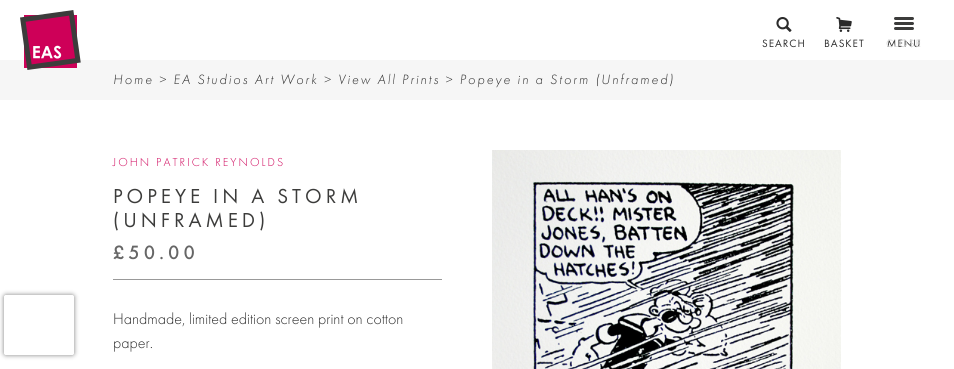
import math
import cairo

surface = cairo.ImageSurface(cairo.FORMAT_RGB24, 954, 369)
ctx = cairo.Context(surface)
options = cairo.FontOptions()
options.set_hint_metrics(cairo.HINT_METRICS_OFF)
options.set_hint_style(cairo.HINT_STYLE_NONE)
ctx.set_font_options(options)
ctx.set_miter_limit(4)


def spaced_text(x, y, s, letter, word):
    ctx.move_to(x, y)
    for ch in s:
        ctx.show_text(ch)
        ctx.rel_move_to(letter + word * (ch == ' '), 0)


def round_rect(x, y, w, h, r):
    ctx.new_sub_path()
    for i, (u, v) in enumerate([(x + w - r, y + h - r), (x + r, y + h - r), (x + r, y + r), (x + w - r, y + r)]):
        ctx.arc(u, v, r, i * math.pi / 2, (i + 1) * math.pi / 2)
    ctx.close_path()


def shadow(x, y, w, h, r, blur, alpha):
    ctx.push_group_with_content(cairo.CONTENT_ALPHA)
    ctx.set_operator(cairo.OPERATOR_SOURCE)
    for i in range(15, -16, -2):
        e = blur * i / 6
        if min(w, h) + 2 * e > 0:
            ctx.set_source_rgba(0, 0, 0, alpha * math.erfc((i - 1) / 8.5) / 2)
            round_rect(x - e, y - e, w + 2 * e, h + 2 * e, max(0, min(r + e + blur * .6, min(w, h) / 2 + e)))
            ctx.fill()
    ctx.mask(ctx.pop_group())


def picture(path, x, y, w, h):
    ctx.save()
    ctx.set_source_surface(cairo.ImageSurface.create_from_png(path), x, y)
    ctx.rectangle(x, y, w, h)
    ctx.fill()
    ctx.restore()


ctx.set_source_rgb(1, 1, 1)
ctx.paint()
ctx.set_source_rgb(0.961, 0.961, 0.961)
ctx.rectangle(0, 60, 954, 40)
ctx.fill()
picture("img1.png", 20, 10, 61, 60)
picture("img2.png", 776, 17, 16, 15)
ctx.select_font_face("Futura PT")
ctx.set_font_size(11)
ctx.set_source_rgb(0.169, 0.169, 0.169)
spaced_text(762, 47, "SEARCH", 1, 0)
picture("img3.png", 836, 17, 16, 15)
spaced_text(824, 47, "BASKET", 1, 0)
ctx.set_source_rgb(0.235, 0.235, 0.231)
round_rect(894, 17, 20, 3, 1.5)
ctx.fill()
round_rect(894, 22, 20, 3, 1.5)
ctx.fill()
round_rect(894, 27, 20, 3, 1.5)
ctx.fill()
ctx.set_source_rgb(0.169, 0.169, 0.169)
spaced_text(887, 47, "MENU", 1, 0)
ctx.set_source_rgb(0.847, 0.847, 0.847)
spaced_text(886, 47, "CLOSE", 1, 0)
ctx.save()
ctx.set_fill_rule(cairo.FILL_RULE_EVEN_ODD)
ctx.new_path()
ctx.move_to(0, 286)
ctx.line_to(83, 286)
ctx.line_to(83, 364)
ctx.line_to(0, 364)
ctx.close_path()
ctx.move_to(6, 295)
ctx.line_to(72, 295)
ctx.curve_to(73, 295, 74, 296, 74, 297)
ctx.line_to(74, 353)
ctx.curve_to(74, 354, 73, 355, 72, 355)
ctx.line_to(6, 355)
ctx.curve_to(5, 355, 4, 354, 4, 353)
ctx.line_to(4, 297)
ctx.curve_to(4, 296, 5, 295, 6, 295)
ctx.close_path()
ctx.clip()
ctx.set_source_rgb(0.502, 0.502, 0.502)
shadow(4, 295, 70, 60, 2, 2.5, 1)
ctx.restore()
ctx.select_font_face("Futura PT Light", cairo.FONT_SLANT_ITALIC)
ctx.set_font_size(14)
ctx.set_source_rgb(0.169, 0.169, 0.169)
spaced_text(113, 84, "Home > EA Studios Art Work > View All Prints > Popeye in a Storm (Unframed)", 2, 0)
ctx.select_font_face("Futura PT Light")
ctx.set_font_size(12)
ctx.set_source_rgb(0.808, 0, 0.345)
spaced_text(113, 166, "JOHN PATRICK REYNOLDS", 2, 0)
ctx.select_font_face("Futura PT")
ctx.set_font_size(21)
ctx.set_source_rgb(0.235, 0.235, 0.231)
spaced_text(113, 203, "POPEYE IN A STORM", 4, 0)
spaced_text(113, 227, "(UNFRAMED)", 4, 0)
ctx.select_font_face("Futura PT Medium")
ctx.set_font_size(20)
ctx.set_source_rgb(0.4, 0.4, 0.4)
spaced_text(113, 259, "£50.00", 4, 0)
ctx.set_source_rgb(0.6, 0.6, 0.6)
ctx.rectangle(113, 279, 329, 1)
ctx.fill()
ctx.select_font_face("Futura PT Light")
ctx.set_font_size(16)
ctx.set_source_rgb(0.169, 0.169, 0.169)
ctx.move_to(113, 324)
ctx.show_text("Handmade, limited edition screen print on cotton")
ctx.move_to(113, 348)
ctx.show_text("paper.")
picture("img4.png", 492, 150, 349, 219)
surface.write_to_png("page.png")
